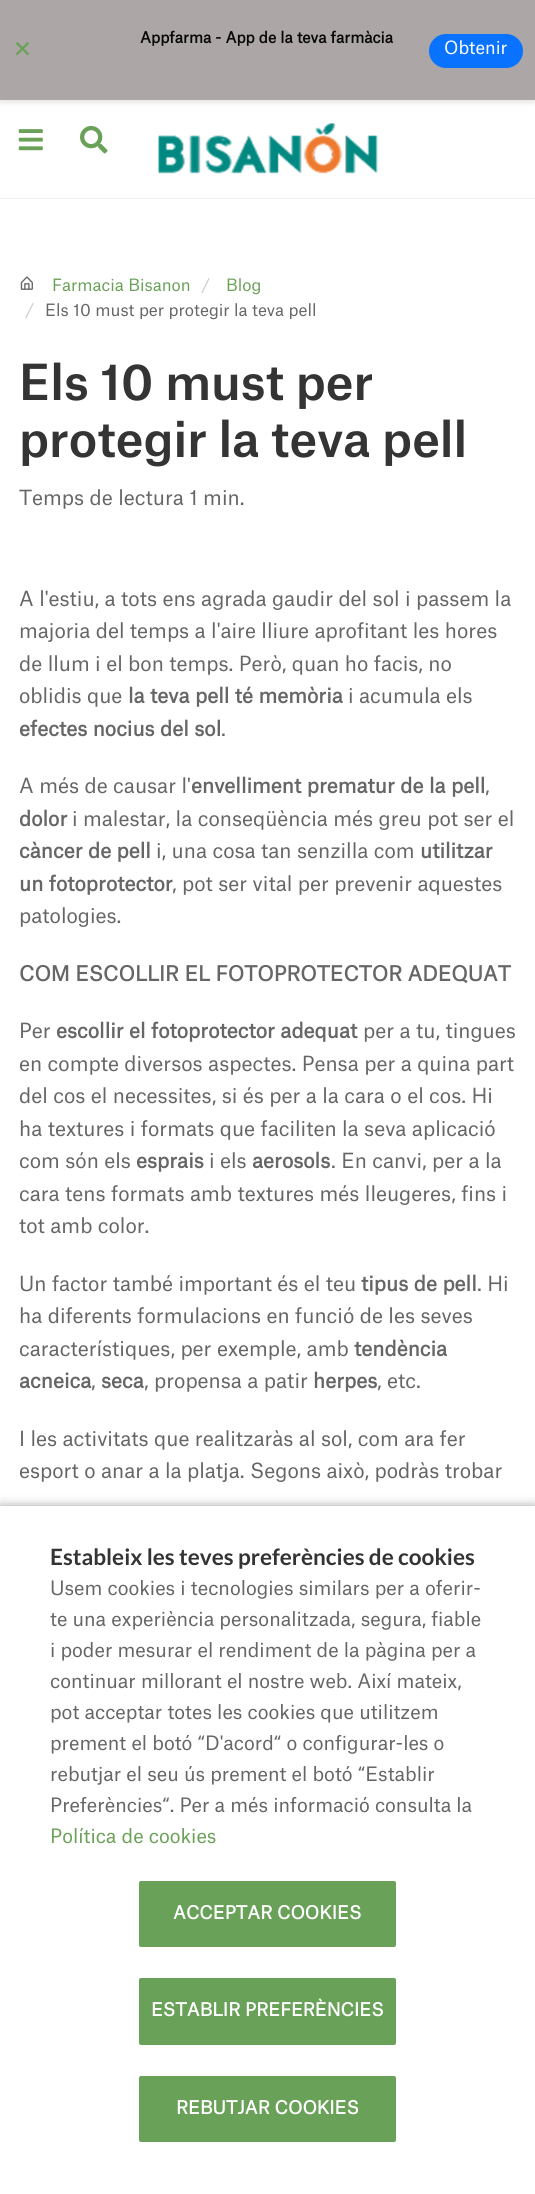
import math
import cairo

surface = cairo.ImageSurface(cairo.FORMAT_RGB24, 535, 2194)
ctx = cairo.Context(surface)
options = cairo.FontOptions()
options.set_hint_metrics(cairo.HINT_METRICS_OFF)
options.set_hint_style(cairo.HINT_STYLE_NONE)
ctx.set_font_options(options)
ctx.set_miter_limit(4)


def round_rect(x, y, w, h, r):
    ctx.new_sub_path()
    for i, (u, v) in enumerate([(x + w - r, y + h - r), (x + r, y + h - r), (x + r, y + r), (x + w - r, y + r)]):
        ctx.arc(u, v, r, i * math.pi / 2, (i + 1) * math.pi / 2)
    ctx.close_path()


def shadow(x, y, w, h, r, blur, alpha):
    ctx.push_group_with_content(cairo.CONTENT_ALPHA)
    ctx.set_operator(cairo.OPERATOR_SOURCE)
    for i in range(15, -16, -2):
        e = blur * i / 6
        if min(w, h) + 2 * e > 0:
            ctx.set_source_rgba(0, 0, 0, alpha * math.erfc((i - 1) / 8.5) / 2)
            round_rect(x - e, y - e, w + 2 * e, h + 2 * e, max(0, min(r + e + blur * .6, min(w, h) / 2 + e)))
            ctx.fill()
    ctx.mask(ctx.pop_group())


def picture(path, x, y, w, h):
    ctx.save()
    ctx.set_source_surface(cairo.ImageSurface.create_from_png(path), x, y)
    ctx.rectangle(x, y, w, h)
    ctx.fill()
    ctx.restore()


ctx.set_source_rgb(1, 1, 1)
ctx.paint()
ctx.set_source_rgb(0, 0, 0)
shadow(0, 3, 535, 100, 0, 2.5, 0.1)
ctx.set_source_rgb(0.675, 0.651, 0.651)
ctx.rectangle(0, 0, 535, 100)
ctx.fill()
ctx.select_font_face("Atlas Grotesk", cairo.FONT_SLANT_NORMAL, cairo.FONT_WEIGHT_BOLD)
ctx.set_font_size(15)
ctx.set_source_rgb(0.027, 0.027, 0.027)
ctx.move_to(140, 43)
ctx.show_text("Appfarma - App de la teva farmàcia")
ctx.select_font_face("Atlas Grotesk")
ctx.set_font_size(30)
ctx.set_source_rgb(0.416, 0.631, 0.349)
ctx.move_to(13, 59)
ctx.show_text("×")
ctx.set_source_rgb(0.039, 0.451, 1)
round_rect(429, 34, 94, 34, 17)
ctx.fill()
ctx.set_font_size(17.5)
ctx.set_source_rgb(1, 1, 1)
ctx.move_to(444, 54)
ctx.show_text("Obtenir")
ctx.set_source_rgb(0.945, 0.945, 0.945)
ctx.rectangle(0, 198, 535, 1)
ctx.fill()
picture("img1.png", 18, 129, 25, 22)
picture("img2.png", 80, 125, 28, 29)
picture("img3.png", 158, 123, 220, 51)
picture("img4.png", 20, 276, 13, 14)
ctx.set_font_size(16.25)
ctx.set_source_rgb(0.416, 0.631, 0.349)
ctx.move_to(52, 291)
ctx.show_text("Farmacia Bisanon")
ctx.set_source_rgb(0.8, 0.8, 0.8)
ctx.move_to(201, 291)
ctx.show_text("/")
ctx.set_source_rgb(0.416, 0.631, 0.349)
ctx.move_to(226, 291)
ctx.show_text("Blog")
ctx.set_source_rgb(0.8, 0.8, 0.8)
ctx.move_to(25, 316)
ctx.show_text("/")
ctx.set_source_rgb(0.4, 0.4, 0.4)
ctx.move_to(45, 316)
ctx.show_text("Els 10 must per protegir la teva pell")
ctx.select_font_face("Atlas Grotesk Medium")
ctx.set_font_size(47.5)
ctx.set_source_rgb(0.204, 0.204, 0.204)
ctx.move_to(19, 400)
ctx.show_text("Els 10 must per")
ctx.move_to(19, 457)
ctx.show_text("protegir la teva pell")
ctx.select_font_face("Atlas Grotesk")
ctx.set_font_size(20)
ctx.set_source_rgb(0.4, 0.4, 0.4)
ctx.move_to(19, 505)
ctx.show_text("Temps de lectura 1 min.")
ctx.move_to(19, 606)
ctx.show_text("A l'estiu, a tots ens agrada gaudir del sol i passem la")
ctx.move_to(19, 638)
ctx.show_text("majoria del temps a l'aire lliure aprofitant les hores")
ctx.move_to(19, 671)
ctx.show_text("de llum i el bon temps. Però, quan ho facis, no")
ctx.move_to(19, 703)
ctx.show_text("oblidis que")
ctx.select_font_face("Atlas Grotesk", cairo.FONT_SLANT_NORMAL, cairo.FONT_WEIGHT_BOLD)
ctx.move_to(128, 703)
ctx.show_text("la teva pell té memòria")
ctx.select_font_face("Atlas Grotesk")
ctx.move_to(348, 703)
ctx.show_text("i acumula els")
ctx.select_font_face("Atlas Grotesk", cairo.FONT_SLANT_NORMAL, cairo.FONT_WEIGHT_BOLD)
ctx.move_to(19, 736)
ctx.show_text("efectes nocius del sol")
ctx.select_font_face("Atlas Grotesk")
ctx.move_to(221, 736)
ctx.show_text(".")
ctx.move_to(19, 793)
ctx.show_text("A més de causar l'")
ctx.select_font_face("Atlas Grotesk", cairo.FONT_SLANT_NORMAL, cairo.FONT_WEIGHT_BOLD)
ctx.move_to(191, 793)
ctx.show_text("envelliment prematur de la pell")
ctx.select_font_face("Atlas Grotesk")
ctx.move_to(485, 793)
ctx.show_text(",")
ctx.select_font_face("Atlas Grotesk", cairo.FONT_SLANT_NORMAL, cairo.FONT_WEIGHT_BOLD)
ctx.move_to(19, 826)
ctx.show_text("dolor")
ctx.select_font_face("Atlas Grotesk")
ctx.move_to(72, 826)
ctx.show_text("i malestar, la conseqüència més greu pot ser el")
ctx.select_font_face("Atlas Grotesk", cairo.FONT_SLANT_NORMAL, cairo.FONT_WEIGHT_BOLD)
ctx.move_to(19, 858)
ctx.show_text("càncer de pell")
ctx.select_font_face("Atlas Grotesk")
ctx.move_to(156, 858)
ctx.show_text("i, una cosa tan senzilla com")
ctx.select_font_face("Atlas Grotesk", cairo.FONT_SLANT_NORMAL, cairo.FONT_WEIGHT_BOLD)
ctx.move_to(420, 858)
ctx.show_text("utilitzar")
ctx.move_to(19, 891)
ctx.show_text("un fotoprotector")
ctx.select_font_face("Atlas Grotesk")
ctx.move_to(172, 891)
ctx.show_text(", pot ser vital per prevenir aquestes")
ctx.move_to(19, 923)
ctx.show_text("patologies.")
ctx.select_font_face("Atlas Grotesk", cairo.FONT_SLANT_NORMAL, cairo.FONT_WEIGHT_BOLD)
ctx.move_to(19, 981)
ctx.show_text("COM ESCOLLIR EL FOTOPROTECTOR ADEQUAT")
ctx.select_font_face("Atlas Grotesk")
ctx.move_to(19, 1038)
ctx.show_text("Per")
ctx.select_font_face("Atlas Grotesk", cairo.FONT_SLANT_NORMAL, cairo.FONT_WEIGHT_BOLD)
ctx.move_to(56, 1038)
ctx.show_text("escollir el fotoprotector adequat")
ctx.select_font_face("Atlas Grotesk")
ctx.move_to(363, 1038)
ctx.show_text("per a tu, tingues")
ctx.move_to(19, 1071)
ctx.show_text("en compte diversos aspectes. Pensa per a quina part")
ctx.move_to(19, 1103)
ctx.show_text("del cos el necessites, si és per a la cara o el cos. Hi")
ctx.move_to(19, 1136)
ctx.show_text("ha textures i formats que faciliten la seva aplicació")
ctx.move_to(19, 1168)
ctx.show_text("com són els")
ctx.select_font_face("Atlas Grotesk", cairo.FONT_SLANT_NORMAL, cairo.FONT_WEIGHT_BOLD)
ctx.move_to(136, 1168)
ctx.show_text("esprais")
ctx.select_font_face("Atlas Grotesk")
ctx.move_to(209, 1168)
ctx.show_text("i els")
ctx.select_font_face("Atlas Grotesk", cairo.FONT_SLANT_NORMAL, cairo.FONT_WEIGHT_BOLD)
ctx.move_to(252, 1168)
ctx.show_text("aerosols")
ctx.select_font_face("Atlas Grotesk")
ctx.move_to(331, 1168)
ctx.show_text(". En canvi, per a la")
ctx.move_to(19, 1201)
ctx.show_text("cara tens formats amb textures més lleugeres, fins i")
ctx.move_to(19, 1233)
ctx.show_text("tot amb color.")
ctx.move_to(19, 1291)
ctx.show_text("Un factor també important és el teu")
ctx.select_font_face("Atlas Grotesk", cairo.FONT_SLANT_NORMAL, cairo.FONT_WEIGHT_BOLD)
ctx.move_to(361, 1291)
ctx.show_text("tipus de pell")
ctx.select_font_face("Atlas Grotesk")
ctx.move_to(477, 1291)
ctx.show_text(". Hi")
ctx.move_to(19, 1323)
ctx.show_text("ha diferents formulacions en funció de les seves")
ctx.move_to(19, 1356)
ctx.show_text("característiques, per exemple, amb")
ctx.select_font_face("Atlas Grotesk", cairo.FONT_SLANT_NORMAL, cairo.FONT_WEIGHT_BOLD)
ctx.move_to(354, 1356)
ctx.show_text("tendència")
ctx.move_to(19, 1388)
ctx.show_text("acneica")
ctx.select_font_face("Atlas Grotesk")
ctx.move_to(91, 1388)
ctx.show_text(",")
ctx.select_font_face("Atlas Grotesk", cairo.FONT_SLANT_NORMAL, cairo.FONT_WEIGHT_BOLD)
ctx.move_to(101, 1388)
ctx.show_text("seca")
ctx.select_font_face("Atlas Grotesk")
ctx.move_to(144, 1388)
ctx.show_text(", propensa a patir")
ctx.select_font_face("Atlas Grotesk", cairo.FONT_SLANT_NORMAL, cairo.FONT_WEIGHT_BOLD)
ctx.move_to(313, 1388)
ctx.show_text("herpes")
ctx.select_font_face("Atlas Grotesk")
ctx.move_to(377, 1388)
ctx.show_text(", etc.")
ctx.move_to(19, 1446)
ctx.show_text("I les activitats que realitzaràs al sol, com ara fer")
ctx.move_to(19, 1478)
ctx.show_text("esport o anar a la platja. Segons això, podràs trobar")
ctx.set_source_rgb(0, 0, 0)
shadow(0, 1508, 535, 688, 0, 6, 0.5)
ctx.set_source_rgb(1, 1, 1)
ctx.rectangle(0, 1506, 535, 688)
ctx.fill()
ctx.select_font_face("Lato", cairo.FONT_SLANT_NORMAL, cairo.FONT_WEIGHT_BOLD)
ctx.set_font_size(22.5)
ctx.set_source_rgb(0.204, 0.204, 0.204)
ctx.move_to(50, 1565)
ctx.show_text("Estableix les teves preferències de cookies")
ctx.select_font_face("Atlas Grotesk")
ctx.set_font_size(19)
ctx.set_source_rgb(0.4, 0.4, 0.4)
ctx.move_to(50, 1595)
ctx.show_text("Usem cookies i tecnologies similars per a oferir-")
ctx.move_to(50, 1626)
ctx.show_text("te una experiència personalitzada, segura, fiable")
ctx.move_to(50, 1657)
ctx.show_text("i poder mesurar el rendiment de la pàgina per a")
ctx.move_to(50, 1688)
ctx.show_text("continuar millorant el nostre web. Així mateix,")
ctx.move_to(50, 1719)
ctx.show_text("pot acceptar totes les cookies que utilitzem")
ctx.move_to(50, 1750)
ctx.show_text("prement el botó “D'acord“ o configurar-les o")
ctx.move_to(50, 1781)
ctx.show_text("rebutjar el seu ús prement el botó “Establir")
ctx.move_to(50, 1812)
ctx.show_text("Preferències“. Per a més informació consulta la")
ctx.set_source_rgb(0.416, 0.631, 0.349)
ctx.move_to(50, 1843)
ctx.show_text("Política de cookies")
round_rect(137.5, 1879.5, 260, 69, 3.5)
ctx.fill_preserve()
ctx.set_source_rgb(1, 1, 1)
ctx.set_line_width(3)
ctx.stroke()
ctx.select_font_face("Atlas Grotesk", cairo.FONT_SLANT_NORMAL, cairo.FONT_WEIGHT_BOLD)
ctx.set_font_size(17.5)
ctx.move_to(173, 1919)
ctx.show_text("ACCEPTAR COOKIES")
ctx.set_source_rgb(0.416, 0.631, 0.349)
round_rect(137.5, 1976.5, 260, 70, 3.5)
ctx.fill_preserve()
ctx.set_source_rgb(1, 1, 1)
ctx.stroke()
ctx.move_to(151, 2016)
ctx.show_text("ESTABLIR PREFERÈNCIES")
ctx.set_source_rgb(0.416, 0.631, 0.349)
round_rect(137.5, 2074.5, 260, 69, 3.5)
ctx.fill_preserve()
ctx.set_source_rgb(1, 1, 1)
ctx.stroke()
ctx.move_to(176, 2114)
ctx.show_text("REBUTJAR COOKIES")
surface.write_to_png("page.png")
